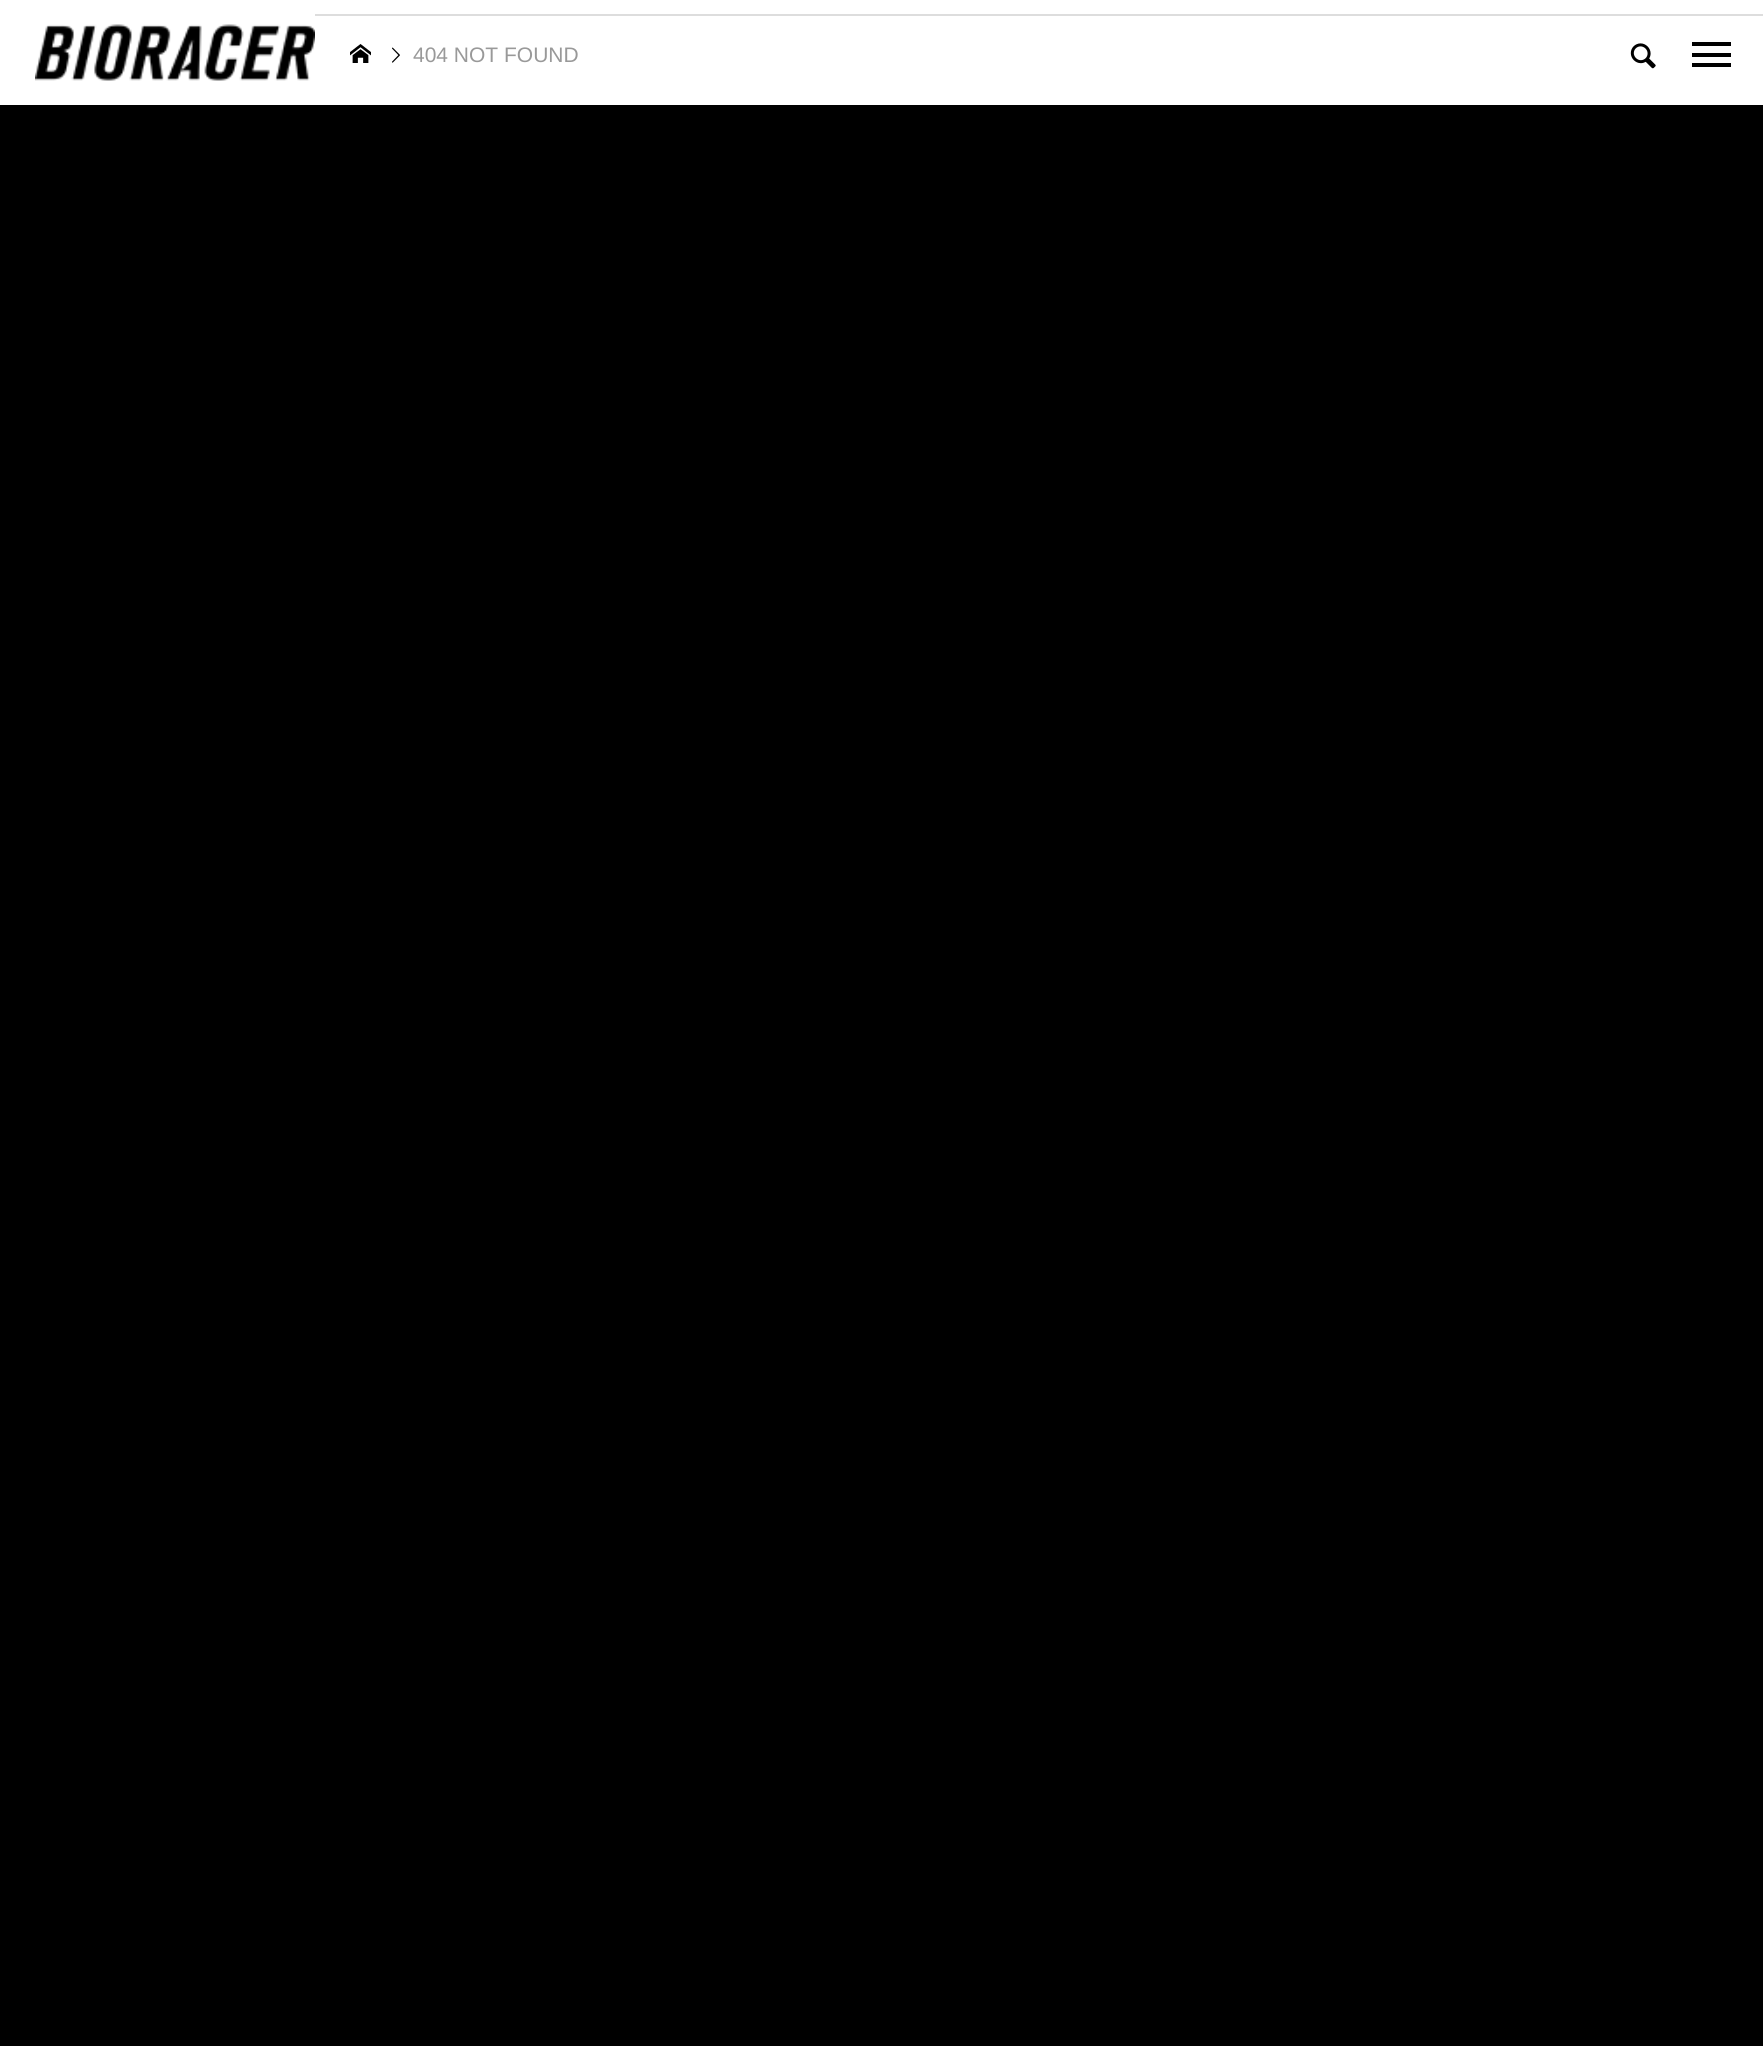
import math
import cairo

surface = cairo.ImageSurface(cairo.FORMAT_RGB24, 1763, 2046)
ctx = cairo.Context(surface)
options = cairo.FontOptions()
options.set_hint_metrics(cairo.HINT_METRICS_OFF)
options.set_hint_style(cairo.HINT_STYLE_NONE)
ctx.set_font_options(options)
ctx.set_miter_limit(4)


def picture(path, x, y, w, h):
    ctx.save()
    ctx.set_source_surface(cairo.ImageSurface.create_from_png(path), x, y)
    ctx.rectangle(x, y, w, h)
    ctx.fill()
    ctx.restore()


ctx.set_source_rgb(1, 1, 1)
ctx.paint()
picture("img1.png", 35, 24, 280, 57)
ctx.set_source_rgb(0.867, 0.867, 0.867)
ctx.rectangle(315, 14, 1448, 2)
ctx.fill()
picture("img2.png", 350, 44, 21, 19)
picture("img3.png", 392, 47, 8, 16)
ctx.select_font_face("Liberation Sans")
ctx.set_font_size(21)
ctx.set_source_rgb(0.6, 0.6, 0.6)
ctx.move_to(413, 62)
ctx.show_text("404 NOT FOUND")
picture("img4.png", 1630, 43, 26, 26)
ctx.set_source_rgb(0, 0, 0)
ctx.rectangle(1692, 42, 39, 4)
ctx.fill()
ctx.rectangle(1692, 53, 39, 4)
ctx.fill()
ctx.rectangle(1692, 63, 39, 4)
ctx.fill()
ctx.rectangle(0, 105, 1763, 1941)
ctx.fill()
surface.write_to_png("page.png")
